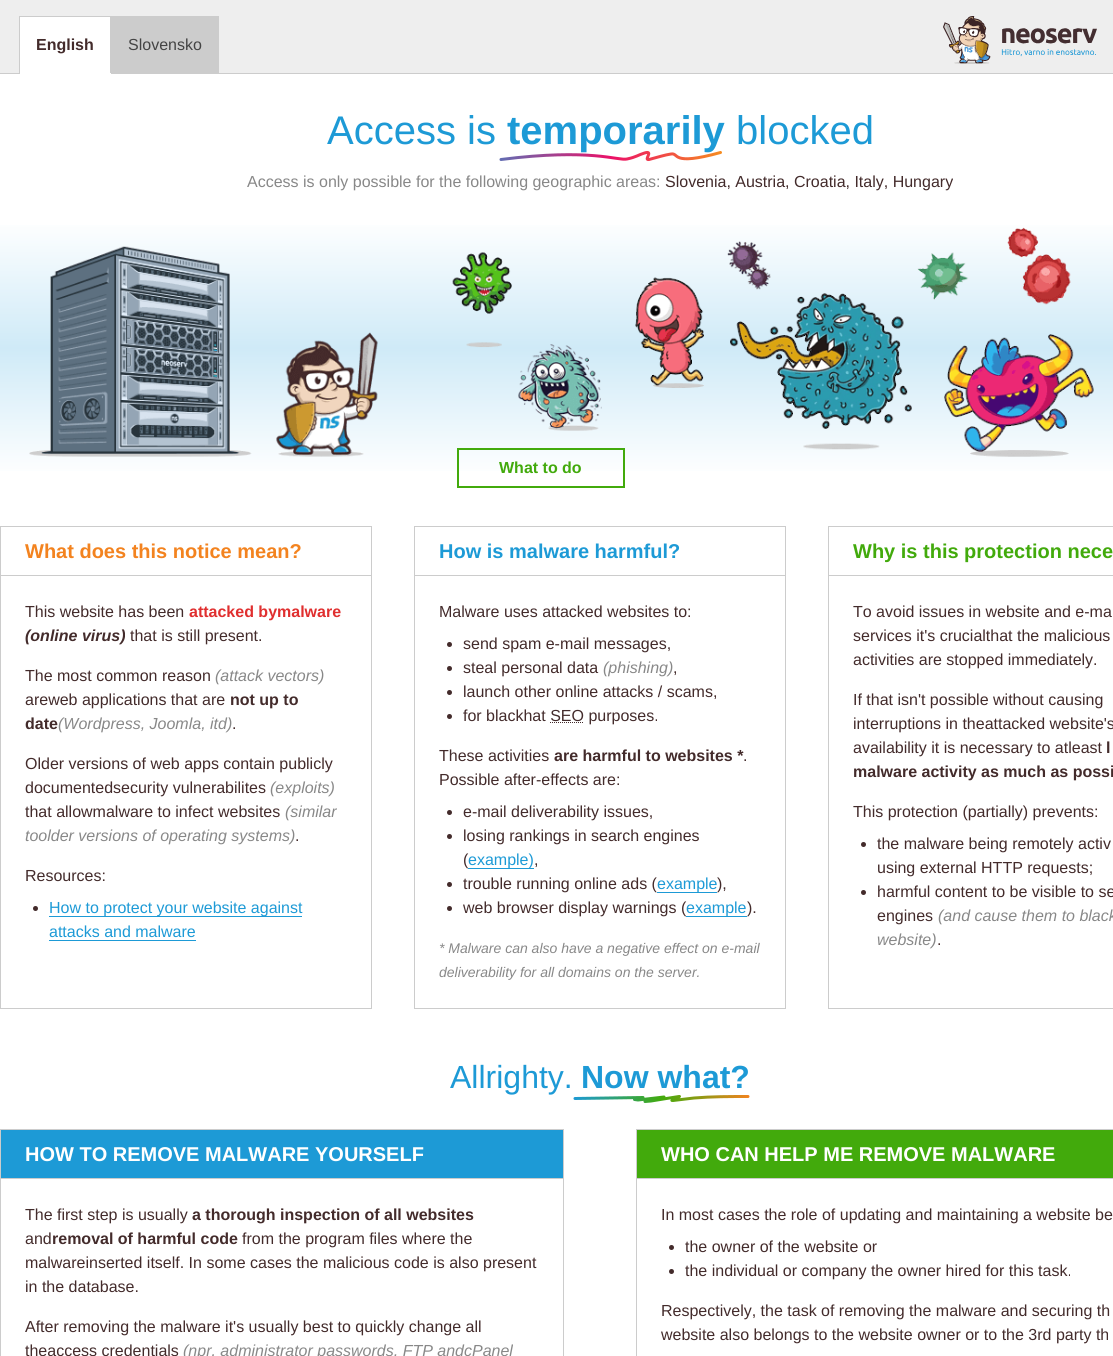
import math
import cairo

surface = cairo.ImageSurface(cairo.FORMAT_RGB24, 1113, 1356)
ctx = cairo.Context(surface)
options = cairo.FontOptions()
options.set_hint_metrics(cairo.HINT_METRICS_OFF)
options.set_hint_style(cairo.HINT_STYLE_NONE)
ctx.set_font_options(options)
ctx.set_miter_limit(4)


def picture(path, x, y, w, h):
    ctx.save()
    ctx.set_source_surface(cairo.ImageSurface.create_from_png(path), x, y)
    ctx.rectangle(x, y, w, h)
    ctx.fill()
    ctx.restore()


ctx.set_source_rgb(0.933, 0.933, 0.933)
ctx.paint()
picture("img1.png", 943, 16, 154, 48)
ctx.set_source_rgb(1, 1, 1)
ctx.rectangle(20, 17, 90, 56)
ctx.fill()
ctx.set_source_rgb(0.8, 0.8, 0.8)
ctx.rectangle(19, 16, 92, 1)
ctx.fill()
ctx.rectangle(0, 73, 1113, 1)
ctx.fill()
ctx.rectangle(110, 16, 1, 58)
ctx.fill()
ctx.set_source_rgb(1, 1, 1)
ctx.rectangle(19, 73, 92, 1)
ctx.fill()
ctx.set_source_rgb(0.8, 0.8, 0.8)
ctx.rectangle(19, 16, 1, 58)
ctx.fill()
ctx.select_font_face("Liberation Sans", cairo.FONT_SLANT_NORMAL, cairo.FONT_WEIGHT_BOLD)
ctx.set_font_size(16)
ctx.set_source_rgb(0.263, 0.169, 0.169)
ctx.move_to(36, 50)
ctx.show_text("English")
ctx.set_source_rgb(0.8, 0.8, 0.8)
ctx.rectangle(111, 16, 108, 57)
ctx.fill()
ctx.select_font_face("Liberation Sans")
ctx.set_source_rgb(0.267, 0.267, 0.267)
ctx.move_to(128, 50)
ctx.show_text("Slovensko")
ctx.set_source_rgb(1, 1, 1)
ctx.rectangle(0, 74, 1113, 1282)
ctx.fill()
ctx.set_font_size(40)
ctx.set_source_rgb(0.114, 0.604, 0.839)
ctx.move_to(327, 144)
ctx.show_text("Access is")
ctx.select_font_face("Liberation Sans", cairo.FONT_SLANT_NORMAL, cairo.FONT_WEIGHT_BOLD)
ctx.move_to(507, 144)
ctx.show_text("temporarily")
ctx.new_path()
ctx.move_to(501, 159.5)
ctx.curve_to(591.5, 148, 618, 161, 627, 159)
ctx.curve_to(636.5, 157, 638, 155, 644.5, 153)
ctx.curve_to(654.5, 150, 643, 160.5, 649, 159.5)
ctx.curve_to(658.5, 157, 664.5, 155, 671, 154)
ctx.curve_to(679.5, 152.5, 670, 166.5, 720.5, 152.5)
gradient = cairo.LinearGradient(499, 158, 725, 158)
gradient.add_color_stop_rgba(0, 0.38, 0.431, 0.702, 1)
gradient.add_color_stop_rgba(0.5, 0.925, 0.063, 0.404, 1)
gradient.add_color_stop_rgba(1, 0.965, 0.565, 0.118, 1)
ctx.set_source(gradient)
ctx.set_line_width(3)
ctx.set_line_cap(cairo.LINE_CAP_ROUND)
ctx.set_line_join(cairo.LINE_JOIN_ROUND)
ctx.stroke()
ctx.select_font_face("Liberation Sans")
ctx.set_source_rgb(0.114, 0.604, 0.839)
ctx.move_to(736, 144)
ctx.show_text("blocked")
ctx.set_font_size(16)
ctx.set_source_rgb(0.533, 0.533, 0.533)
ctx.move_to(247, 187)
ctx.show_text("Access is only possible for the following geographic areas:")
ctx.set_source_rgb(0.263, 0.169, 0.169)
ctx.move_to(665, 187)
ctx.show_text("Slovenia, Austria, Croatia, Italy, Hungary")
gradient = cairo.LinearGradient(557, 218, 557, 478)
gradient.add_color_stop_rgba(0, 1, 1, 1, 1)
gradient.add_color_stop_rgba(0.5, 0.812, 0.918, 0.969, 1)
gradient.add_color_stop_rgba(1, 1, 1, 1, 1)
ctx.set_source(gradient)
ctx.rectangle(0, 225, 1113, 246)
ctx.fill()
picture("img2.png", 29, 227, 1065, 230)
ctx.rectangle(458, 449, 166, 38)
ctx.set_source_rgb(0.259, 0.667, 0.047)
ctx.set_line_width(2)
ctx.set_line_cap(cairo.LINE_CAP_BUTT)
ctx.set_line_join(cairo.LINE_JOIN_MITER)
ctx.stroke()
ctx.select_font_face("Liberation Sans", cairo.FONT_SLANT_NORMAL, cairo.FONT_WEIGHT_BOLD)
ctx.move_to(499, 473)
ctx.show_text("What to do")
ctx.rectangle(0.5, 526.5, 371, 482)
ctx.set_source_rgb(0.8, 0.8, 0.8)
ctx.set_line_width(1)
ctx.stroke()
ctx.rectangle(1, 575, 370, 1)
ctx.fill()
ctx.set_font_size(20)
ctx.set_source_rgb(0.953, 0.514, 0.122)
ctx.move_to(25, 558)
ctx.show_text("What does this notice mean?")
ctx.select_font_face("Liberation Sans")
ctx.set_font_size(16)
ctx.set_source_rgb(0.263, 0.169, 0.169)
ctx.move_to(25, 617)
ctx.show_text("This website has been")
ctx.select_font_face("Liberation Sans", cairo.FONT_SLANT_NORMAL, cairo.FONT_WEIGHT_BOLD)
ctx.set_source_rgb(0.878, 0.184, 0.184)
ctx.move_to(189, 617)
ctx.show_text("attacked bymalware")
ctx.select_font_face("Liberation Sans", cairo.FONT_SLANT_ITALIC, cairo.FONT_WEIGHT_BOLD)
ctx.set_source_rgb(0.263, 0.169, 0.169)
ctx.move_to(25, 641)
ctx.show_text("(online virus)")
ctx.select_font_face("Liberation Sans")
ctx.move_to(130, 641)
ctx.show_text("that is still present.")
ctx.move_to(25, 681)
ctx.show_text("The most common reason")
ctx.select_font_face("Liberation Sans", cairo.FONT_SLANT_ITALIC)
ctx.set_source_rgb(0.533, 0.533, 0.533)
ctx.move_to(215, 681)
ctx.show_text("(attack vectors)")
ctx.select_font_face("Liberation Sans")
ctx.set_source_rgb(0.263, 0.169, 0.169)
ctx.move_to(25, 705)
ctx.show_text("areweb applications that are")
ctx.select_font_face("Liberation Sans", cairo.FONT_SLANT_NORMAL, cairo.FONT_WEIGHT_BOLD)
ctx.move_to(230, 705)
ctx.show_text("not up to")
ctx.move_to(25, 729)
ctx.show_text("date")
ctx.select_font_face("Liberation Sans", cairo.FONT_SLANT_ITALIC)
ctx.set_source_rgb(0.533, 0.533, 0.533)
ctx.move_to(58, 729)
ctx.show_text("(Wordpress, Joomla, itd)")
ctx.select_font_face("Liberation Sans")
ctx.set_source_rgb(0.263, 0.169, 0.169)
ctx.move_to(232, 729)
ctx.show_text(".")
ctx.move_to(25, 769)
ctx.show_text("Older versions of web apps contain publicly")
ctx.move_to(25, 793)
ctx.show_text("documentedsecurity vulnerabilites")
ctx.select_font_face("Liberation Sans", cairo.FONT_SLANT_ITALIC)
ctx.set_source_rgb(0.533, 0.533, 0.533)
ctx.move_to(270, 793)
ctx.show_text("(exploits)")
ctx.select_font_face("Liberation Sans")
ctx.set_source_rgb(0.263, 0.169, 0.169)
ctx.move_to(25, 817)
ctx.show_text("that allowmalware to infect websites")
ctx.select_font_face("Liberation Sans", cairo.FONT_SLANT_ITALIC)
ctx.set_source_rgb(0.533, 0.533, 0.533)
ctx.move_to(285, 817)
ctx.show_text("(similar")
ctx.move_to(25, 841)
ctx.show_text("toolder versions of operating systems)")
ctx.select_font_face("Liberation Sans")
ctx.set_source_rgb(0.263, 0.169, 0.169)
ctx.move_to(295, 841)
ctx.show_text(".")
ctx.move_to(25, 881)
ctx.show_text("Resources:")
ctx.new_path()
ctx.arc(35.5, 908.5, 2.5, 0, 2 * math.pi)
ctx.fill()
ctx.set_source_rgb(0.114, 0.604, 0.839)
ctx.rectangle(49, 916, 253, 1)
ctx.fill()
ctx.move_to(49, 913)
ctx.show_text("How to protect your website against")
ctx.move_to(49, 937)
ctx.show_text("attacks and malware")
ctx.rectangle(49, 940, 147, 1)
ctx.fill()
ctx.rectangle(414.5, 526.5, 371, 482)
ctx.set_source_rgb(0.8, 0.8, 0.8)
ctx.stroke()
ctx.rectangle(415, 575, 370, 1)
ctx.fill()
ctx.select_font_face("Liberation Sans", cairo.FONT_SLANT_NORMAL, cairo.FONT_WEIGHT_BOLD)
ctx.set_font_size(20)
ctx.set_source_rgb(0.114, 0.604, 0.839)
ctx.move_to(439, 558)
ctx.show_text("How is malware harmful?")
ctx.select_font_face("Liberation Sans")
ctx.set_font_size(16)
ctx.set_source_rgb(0.263, 0.169, 0.169)
ctx.move_to(439, 617)
ctx.show_text("Malware uses attacked websites to:")
ctx.new_path()
ctx.arc(449.5, 644.5, 2.5, 0, 2 * math.pi)
ctx.fill()
ctx.move_to(463, 649)
ctx.show_text("send spam e-mail messages,")
ctx.new_path()
ctx.arc(449.5, 668.5, 2.5, 0, 2 * math.pi)
ctx.fill()
ctx.move_to(463, 673)
ctx.show_text("steal personal data")
ctx.select_font_face("Liberation Sans", cairo.FONT_SLANT_ITALIC)
ctx.set_source_rgb(0.533, 0.533, 0.533)
ctx.move_to(603, 673)
ctx.show_text("(phishing)")
ctx.select_font_face("Liberation Sans")
ctx.set_source_rgb(0.263, 0.169, 0.169)
ctx.move_to(673, 673)
ctx.show_text(",")
ctx.new_path()
ctx.arc(449.5, 692.5, 2.5, 0, 2 * math.pi)
ctx.fill()
ctx.move_to(463, 697)
ctx.show_text("launch other online attacks / scams,")
ctx.new_path()
ctx.arc(449.5, 716.5, 2.5, 0, 2 * math.pi)
ctx.fill()
ctx.move_to(463, 721)
ctx.show_text("for blackhat SEO purposes.")
ctx.new_path()
ctx.move_to(550, 722.5)
ctx.line_to(584, 722.5)
ctx.set_dash([1, 1])
ctx.stroke()
ctx.move_to(439, 761)
ctx.show_text("These activities")
ctx.select_font_face("Liberation Sans", cairo.FONT_SLANT_NORMAL, cairo.FONT_WEIGHT_BOLD)
ctx.move_to(554, 761)
ctx.show_text("are harmful to websites *")
ctx.select_font_face("Liberation Sans")
ctx.move_to(743, 761)
ctx.show_text(".")
ctx.move_to(439, 785)
ctx.show_text("Possible after-effects are:")
ctx.new_path()
ctx.arc(449.5, 812.5, 2.5, 0, 2 * math.pi)
ctx.fill()
ctx.move_to(463, 817)
ctx.show_text("e-mail deliverability issues,")
ctx.new_path()
ctx.arc(449.5, 836.5, 2.5, 0, 2 * math.pi)
ctx.fill()
ctx.move_to(463, 841)
ctx.show_text("losing rankings in search engines")
ctx.move_to(463, 865)
ctx.show_text("(")
ctx.set_source_rgb(0.114, 0.604, 0.839)
ctx.rectangle(468, 868, 66, 1)
ctx.fill()
ctx.move_to(468, 865)
ctx.show_text("example)")
ctx.set_source_rgb(0.263, 0.169, 0.169)
ctx.move_to(534, 865)
ctx.show_text(",")
ctx.new_path()
ctx.arc(449.5, 884.5, 2.5, 0, 2 * math.pi)
ctx.fill()
ctx.move_to(463, 889)
ctx.show_text("trouble running online ads (")
ctx.set_source_rgb(0.114, 0.604, 0.839)
ctx.rectangle(657, 892, 60, 1)
ctx.fill()
ctx.move_to(657, 889)
ctx.show_text("example")
ctx.set_source_rgb(0.263, 0.169, 0.169)
ctx.move_to(717, 889)
ctx.show_text("),")
ctx.new_path()
ctx.arc(449.5, 908.5, 2.5, 0, 2 * math.pi)
ctx.fill()
ctx.move_to(463, 913)
ctx.show_text("web browser display warnings (")
ctx.set_source_rgb(0.114, 0.604, 0.839)
ctx.rectangle(686, 916, 61, 1)
ctx.fill()
ctx.move_to(686, 913)
ctx.show_text("example")
ctx.set_source_rgb(0.263, 0.169, 0.169)
ctx.move_to(747, 913)
ctx.show_text(").")
ctx.select_font_face("Liberation Sans", cairo.FONT_SLANT_ITALIC)
ctx.set_font_size(14)
ctx.set_source_rgb(0.533, 0.533, 0.533)
ctx.move_to(439, 953)
ctx.show_text("* Malware can also have a negative effect on e-mail")
ctx.move_to(439, 977)
ctx.show_text("deliverability for all domains on the server.")
ctx.rectangle(828.5, 526.5, 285, 482)
ctx.set_source_rgb(0.8, 0.8, 0.8)
ctx.set_dash([])
ctx.stroke()
ctx.rectangle(829, 575, 284, 1)
ctx.fill()
ctx.select_font_face("Liberation Sans", cairo.FONT_SLANT_NORMAL, cairo.FONT_WEIGHT_BOLD)
ctx.set_font_size(20)
ctx.set_source_rgb(0.259, 0.667, 0.047)
ctx.move_to(853, 558)
ctx.show_text("Why is this protection nece")
ctx.select_font_face("Liberation Sans")
ctx.set_font_size(16)
ctx.set_source_rgb(0.263, 0.169, 0.169)
ctx.move_to(853, 617)
ctx.show_text("To avoid issues in website and e-ma")
ctx.move_to(853, 641)
ctx.show_text("services it's crucialthat the malicious")
ctx.move_to(853, 665)
ctx.show_text("activities are stopped immediately.")
ctx.move_to(853, 705)
ctx.show_text("If that isn't possible without causing")
ctx.move_to(853, 729)
ctx.show_text("interruptions in theattacked website's")
ctx.move_to(853, 753)
ctx.show_text("availability it is necessary to atleast")
ctx.select_font_face("Liberation Sans", cairo.FONT_SLANT_NORMAL, cairo.FONT_WEIGHT_BOLD)
ctx.move_to(1106, 753)
ctx.show_text("l")
ctx.move_to(853, 777)
ctx.show_text("malware activity as much as possi")
ctx.select_font_face("Liberation Sans")
ctx.move_to(853, 817)
ctx.show_text("This protection (partially) prevents:")
ctx.new_path()
ctx.arc(863.5, 844.5, 2.5, 0, 2 * math.pi)
ctx.fill()
ctx.move_to(877, 849)
ctx.show_text("the malware being remotely activ")
ctx.move_to(877, 873)
ctx.show_text("using external HTTP requests;")
ctx.new_path()
ctx.arc(863.5, 892.5, 2.5, 0, 2 * math.pi)
ctx.fill()
ctx.move_to(877, 897)
ctx.show_text("harmful content to be visible to se")
ctx.move_to(877, 921)
ctx.show_text("engines")
ctx.select_font_face("Liberation Sans", cairo.FONT_SLANT_ITALIC)
ctx.set_source_rgb(0.533, 0.533, 0.533)
ctx.move_to(938, 921)
ctx.show_text("(and cause them to black")
ctx.move_to(877, 945)
ctx.show_text("website)")
ctx.select_font_face("Liberation Sans")
ctx.set_source_rgb(0.263, 0.169, 0.169)
ctx.move_to(937, 945)
ctx.show_text(".")
ctx.set_font_size(32)
ctx.set_source_rgb(0.114, 0.604, 0.839)
ctx.move_to(450, 1088)
ctx.show_text("Allrighty.")
ctx.select_font_face("Liberation Sans", cairo.FONT_SLANT_NORMAL, cairo.FONT_WEIGHT_BOLD)
ctx.move_to(581, 1088)
ctx.show_text("Now what?")
ctx.new_path()
ctx.move_to(575, 1098.5)
ctx.line_to(643, 1097.5)
ctx.line_to(634.5, 1099.5)
ctx.line_to(638, 1100)
ctx.line_to(664, 1097)
ctx.line_to(645, 1101.5)
ctx.line_to(651, 1101)
ctx.line_to(669.5, 1098)
ctx.line_to(679, 1096.5)
ctx.line_to(679.5, 1096.5)
ctx.curve_to(679, 1097.5, 668.5, 1101, 673, 1100.5)
ctx.line_to(694, 1098)
ctx.curve_to(712, 1096.5, 730, 1096.5, 748, 1096.5)
gradient = cairo.LinearGradient(573, 1100, 750, 1100)
gradient.add_color_stop_rgba(0, 0.114, 0.604, 0.839, 1)
gradient.add_color_stop_rgba(0.5, 0.259, 0.667, 0.047, 1)
gradient.add_color_stop_rgba(1, 0.953, 0.514, 0.122, 1)
ctx.set_source(gradient)
ctx.set_line_width(3)
ctx.set_line_cap(cairo.LINE_CAP_ROUND)
ctx.set_line_join(cairo.LINE_JOIN_ROUND)
ctx.stroke()
ctx.rectangle(0.5, 1129.5, 563, 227)
ctx.set_source_rgb(0.8, 0.8, 0.8)
ctx.set_line_width(1)
ctx.set_line_cap(cairo.LINE_CAP_BUTT)
ctx.set_line_join(cairo.LINE_JOIN_MITER)
ctx.stroke()
ctx.set_source_rgb(0.114, 0.604, 0.839)
ctx.rectangle(1, 1130, 562, 48)
ctx.fill()
ctx.set_source_rgb(0.8, 0.8, 0.8)
ctx.rectangle(1, 1178, 562, 1)
ctx.fill()
ctx.set_font_size(20)
ctx.set_source_rgb(1, 1, 1)
ctx.move_to(25, 1161)
ctx.show_text("HOW TO REMOVE MALWARE YOURSELF")
ctx.select_font_face("Liberation Sans")
ctx.set_font_size(16)
ctx.set_source_rgb(0.263, 0.169, 0.169)
ctx.move_to(25, 1220)
ctx.show_text("The first step is usually")
ctx.select_font_face("Liberation Sans", cairo.FONT_SLANT_NORMAL, cairo.FONT_WEIGHT_BOLD)
ctx.move_to(192, 1220)
ctx.show_text("a thorough inspection of all websites")
ctx.select_font_face("Liberation Sans")
ctx.move_to(25, 1244)
ctx.show_text("and")
ctx.select_font_face("Liberation Sans", cairo.FONT_SLANT_NORMAL, cairo.FONT_WEIGHT_BOLD)
ctx.move_to(52, 1244)
ctx.show_text("removal of harmful code")
ctx.select_font_face("Liberation Sans")
ctx.move_to(242, 1244)
ctx.show_text("from the program files where the")
ctx.move_to(25, 1268)
ctx.show_text("malwareinserted itself. In some cases the malicious code is also present")
ctx.move_to(25, 1292)
ctx.show_text("in the database.")
ctx.move_to(25, 1332)
ctx.show_text("After removing the malware it's usually best to quickly change all")
ctx.move_to(25, 1356)
ctx.show_text("theaccess credentials")
ctx.select_font_face("Liberation Sans", cairo.FONT_SLANT_ITALIC)
ctx.set_source_rgb(0.533, 0.533, 0.533)
ctx.move_to(183, 1356)
ctx.show_text("(npr. administrator passwords, FTP andcPanel")
ctx.rectangle(636.5, 1129.5, 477, 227)
ctx.set_source_rgb(0.8, 0.8, 0.8)
ctx.stroke()
ctx.set_source_rgb(0.259, 0.667, 0.047)
ctx.rectangle(637, 1130, 476, 48)
ctx.fill()
ctx.set_source_rgb(0.8, 0.8, 0.8)
ctx.rectangle(637, 1178, 476, 1)
ctx.fill()
ctx.select_font_face("Liberation Sans", cairo.FONT_SLANT_NORMAL, cairo.FONT_WEIGHT_BOLD)
ctx.set_font_size(20)
ctx.set_source_rgb(1, 1, 1)
ctx.move_to(661, 1161)
ctx.show_text("WHO CAN HELP ME REMOVE MALWARE")
ctx.select_font_face("Liberation Sans")
ctx.set_font_size(16)
ctx.set_source_rgb(0.263, 0.169, 0.169)
ctx.move_to(661, 1220)
ctx.show_text("In most cases the role of updating and maintaining a website be")
ctx.new_path()
ctx.arc(671.5, 1247.5, 2.5, 0, 2 * math.pi)
ctx.fill()
ctx.move_to(685, 1252)
ctx.show_text("the owner of the website or")
ctx.new_path()
ctx.arc(671.5, 1271.5, 2.5, 0, 2 * math.pi)
ctx.fill()
ctx.move_to(685, 1276)
ctx.show_text("the individual or company the owner hired for this task.")
ctx.move_to(661, 1316)
ctx.show_text("Respectively, the task of removing the malware and securing th")
ctx.move_to(661, 1340)
ctx.show_text("website also belongs to the website owner or to the 3rd party th")
surface.write_to_png("page.png")
